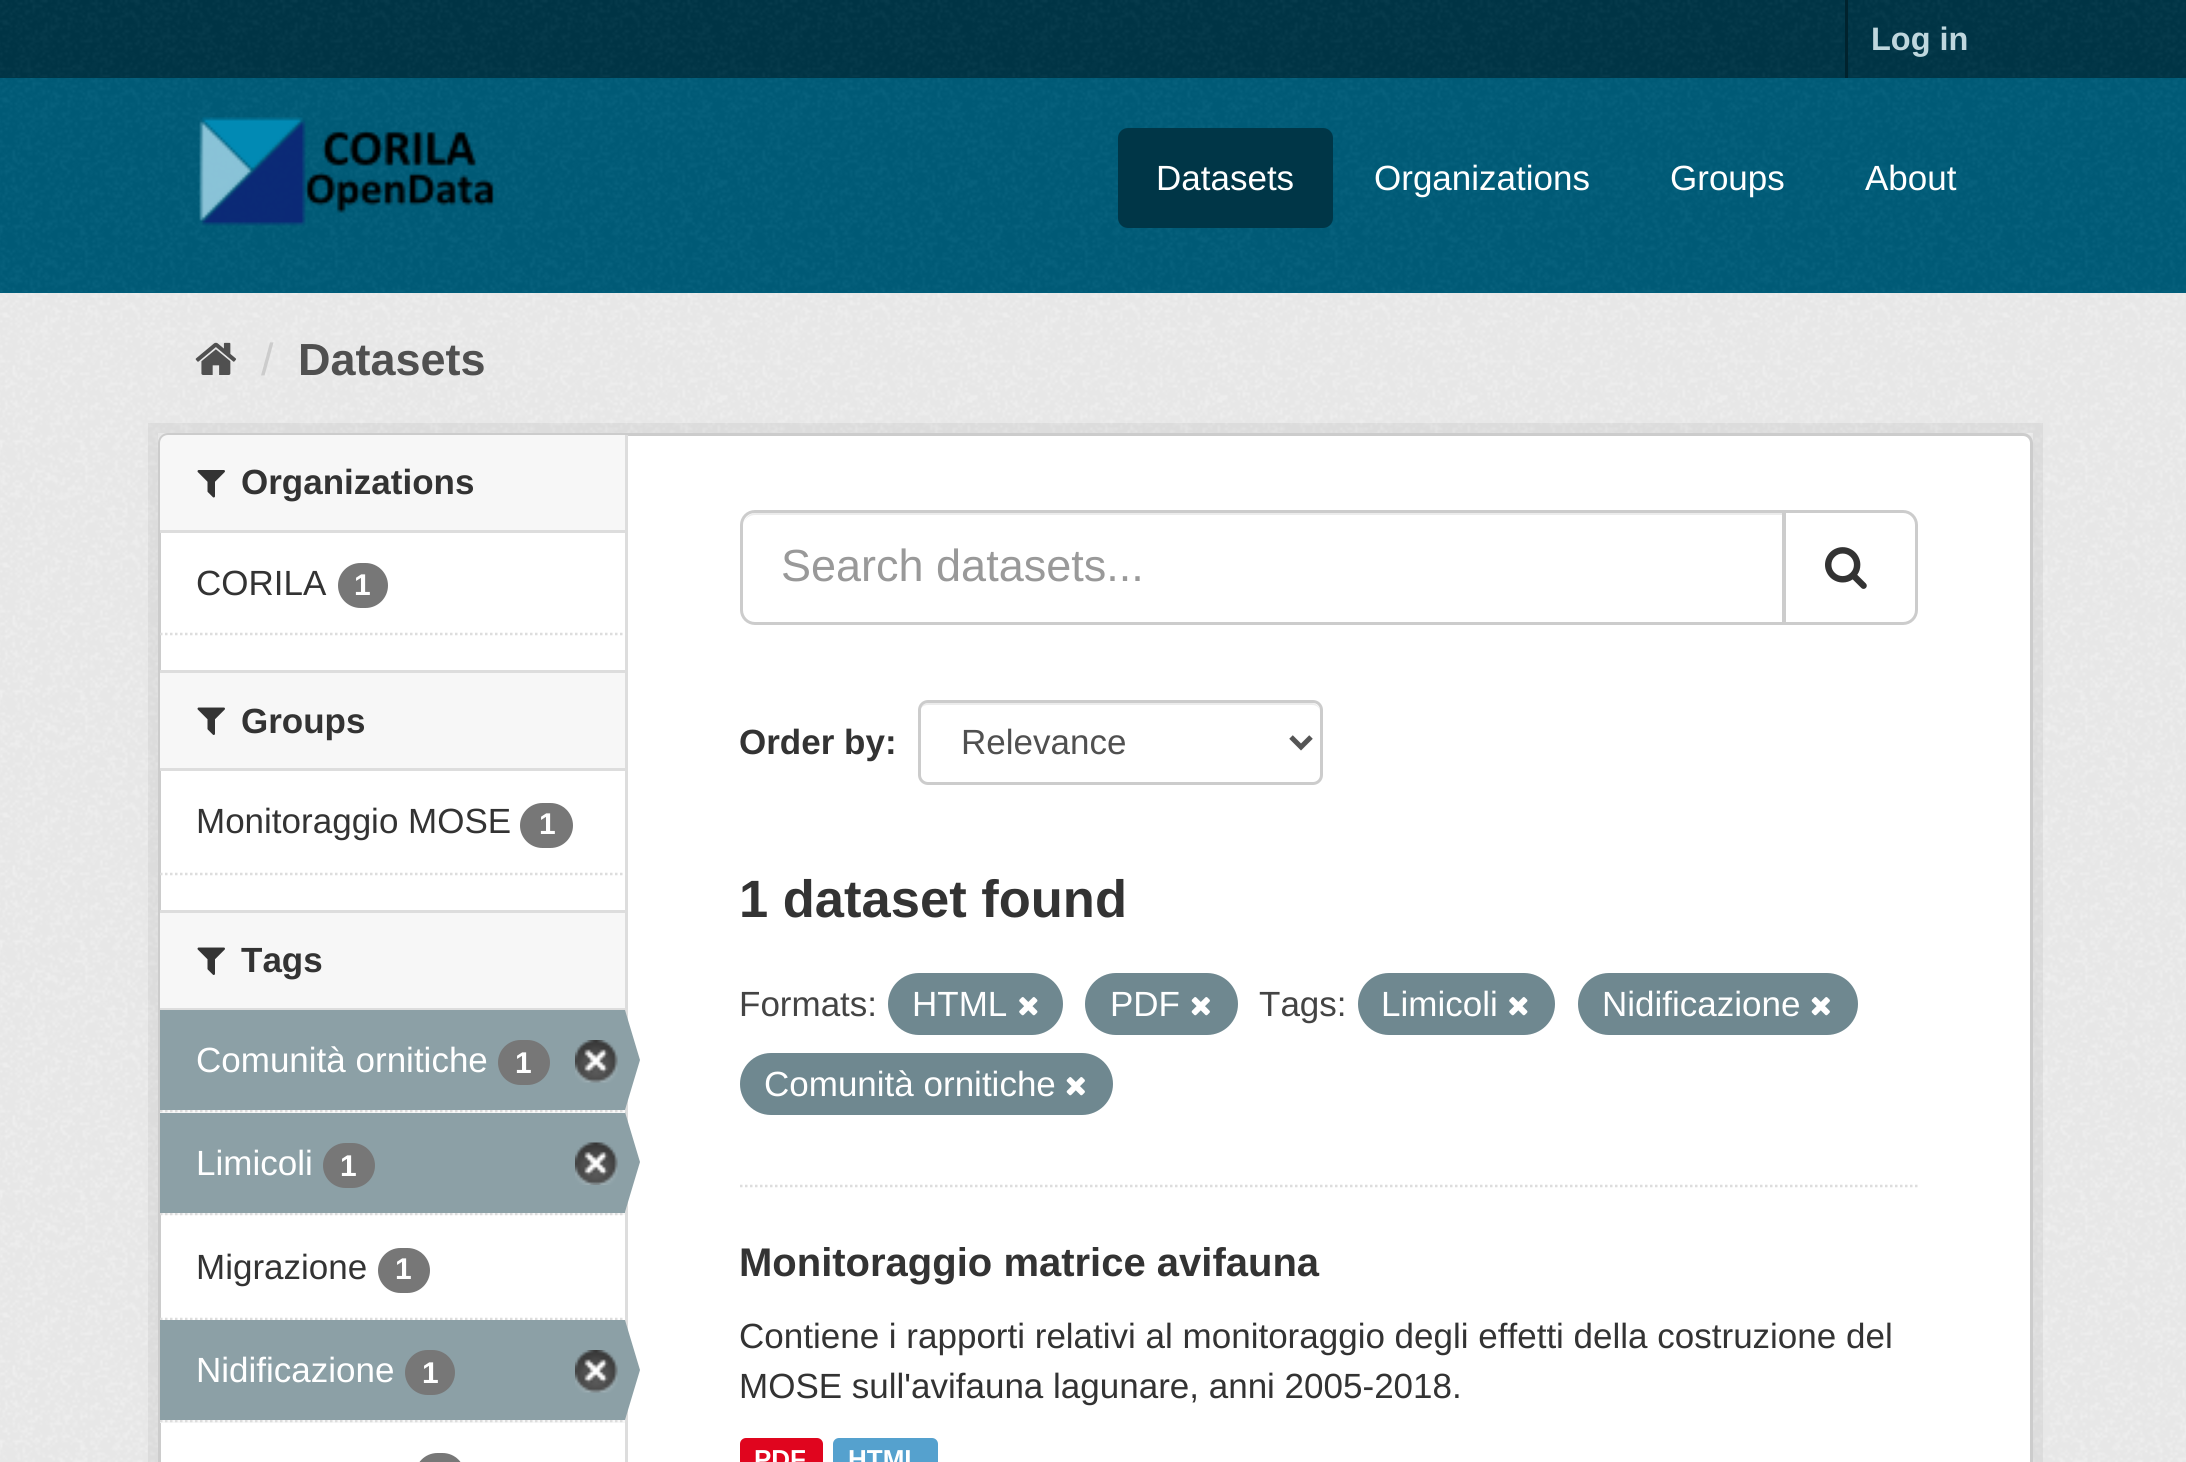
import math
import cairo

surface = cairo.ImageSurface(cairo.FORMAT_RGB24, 2186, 1462)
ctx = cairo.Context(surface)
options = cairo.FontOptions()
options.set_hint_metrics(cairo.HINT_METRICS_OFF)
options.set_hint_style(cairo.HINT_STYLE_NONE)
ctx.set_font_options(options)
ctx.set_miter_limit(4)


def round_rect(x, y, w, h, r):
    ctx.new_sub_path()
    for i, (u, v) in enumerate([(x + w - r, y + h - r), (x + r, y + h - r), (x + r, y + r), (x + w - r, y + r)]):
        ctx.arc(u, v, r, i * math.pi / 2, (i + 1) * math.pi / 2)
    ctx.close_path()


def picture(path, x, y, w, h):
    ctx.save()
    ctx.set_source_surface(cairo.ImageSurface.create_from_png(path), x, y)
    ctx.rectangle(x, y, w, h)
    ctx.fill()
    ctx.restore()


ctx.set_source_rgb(0, 0.212, 0.278)
ctx.paint()
picture("img1.png", 0, 0, 2186, 77)
ctx.set_source_rgb(0, 0.137, 0.18)
ctx.rectangle(1845, 0, 3, 78)
ctx.fill()
ctx.select_font_face("Liberation Sans", cairo.FONT_SLANT_NORMAL, cairo.FONT_WEIGHT_BOLD)
ctx.set_font_size(32.5)
ctx.set_source_rgb(0.749, 0.843, 0.871)
ctx.move_to(1871, 50)
ctx.show_text("Log in")
ctx.set_source_rgb(0, 0.365, 0.478)
ctx.rectangle(0, 78, 2186, 215)
ctx.fill()
picture("img2.png", 0, 78, 2186, 214)
picture("img3.png", 199, 117, 295, 109)
ctx.set_source_rgb(0, 0.212, 0.278)
round_rect(1118, 128, 215, 100, 10)
ctx.fill()
ctx.select_font_face("Liberation Sans")
ctx.set_font_size(35)
ctx.set_source_rgb(1, 1, 1)
ctx.move_to(1156, 190)
ctx.show_text("Datasets")
ctx.move_to(1374, 190)
ctx.show_text("Organizations")
ctx.move_to(1670, 190)
ctx.show_text("Groups")
ctx.move_to(1865, 190)
ctx.show_text("About")
ctx.set_source_rgb(0.933, 0.933, 0.933)
ctx.rectangle(0, 293, 2186, 1169)
ctx.fill()
picture("img4.png", 0, 293, 2186, 1169)
picture("img5.png", 195, 342, 42, 33)
ctx.set_font_size(45)
ctx.set_source_rgb(0.8, 0.8, 0.8)
ctx.move_to(261, 375)
ctx.show_text("/")
ctx.select_font_face("Liberation Sans", cairo.FONT_SLANT_NORMAL, cairo.FONT_WEIGHT_BOLD)
ctx.set_source_rgb(0.314, 0.314, 0.314)
ctx.move_to(298, 375)
ctx.show_text("Datasets")
ctx.rectangle(153, 428, 1885, 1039)
ctx.set_source_rgba(0, 0, 0, 0.05)
ctx.set_line_width(10)
ctx.stroke()
ctx.set_source_rgb(1, 1, 1)
round_rect(159.5, 434.5, 1872, 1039, 8.5)
ctx.fill_preserve()
ctx.set_source_rgb(0.8, 0.8, 0.8)
ctx.set_line_width(3)
ctx.stroke()
ctx.set_source_rgb(0.965, 0.965, 0.965)
ctx.new_path()
ctx.move_to(168, 435)
ctx.line_to(625, 435)
ctx.line_to(625, 533)
ctx.line_to(160, 533)
ctx.line_to(160, 443)
ctx.curve_to(160, 438.5, 163.5, 435, 168, 435)
ctx.close_path()
ctx.fill()
ctx.set_source_rgb(0.867, 0.867, 0.867)
ctx.rectangle(160, 530, 465, 3)
ctx.fill()
picture("img6.png", 197, 470, 28, 28)
ctx.set_font_size(35)
ctx.set_source_rgb(0.2, 0.2, 0.2)
ctx.move_to(241, 494)
ctx.show_text("Organizations")
ctx.select_font_face("Liberation Sans")
ctx.move_to(196, 595)
ctx.show_text("CORILA")
ctx.set_source_rgb(0.467, 0.467, 0.467)
round_rect(338, 563, 50, 45, 22.5)
ctx.fill()
ctx.select_font_face("Liberation Sans", cairo.FONT_SLANT_NORMAL, cairo.FONT_WEIGHT_BOLD)
ctx.set_font_size(30)
ctx.set_source_rgb(1, 1, 1)
ctx.move_to(354, 595)
ctx.show_text("1")
ctx.new_path()
ctx.move_to(160, 634)
ctx.line_to(625, 634)
ctx.set_source_rgb(0.867, 0.867, 0.867)
ctx.set_line_width(2.5)
ctx.set_dash([2.5, 2.5])
ctx.stroke()
ctx.set_source_rgb(0.965, 0.965, 0.965)
ctx.rectangle(160, 673, 465, 95)
ctx.fill()
ctx.set_source_rgb(0.867, 0.867, 0.867)
ctx.rectangle(160, 670, 465, 3)
ctx.fill()
ctx.rectangle(160, 768, 465, 3)
ctx.fill()
picture("img7.png", 197, 707, 28, 28)
ctx.set_font_size(35)
ctx.set_source_rgb(0.2, 0.2, 0.2)
ctx.move_to(241, 733)
ctx.show_text("Groups")
ctx.select_font_face("Liberation Sans")
ctx.move_to(196, 833)
ctx.show_text("Monitoraggio MOSE")
ctx.set_source_rgb(0.467, 0.467, 0.467)
round_rect(520, 803, 53, 45, 22.5)
ctx.fill()
ctx.select_font_face("Liberation Sans", cairo.FONT_SLANT_NORMAL, cairo.FONT_WEIGHT_BOLD)
ctx.set_font_size(30)
ctx.set_source_rgb(1, 1, 1)
ctx.move_to(539, 834)
ctx.show_text("1")
ctx.new_path()
ctx.move_to(160, 874)
ctx.line_to(625, 874)
ctx.set_source_rgb(0.867, 0.867, 0.867)
ctx.stroke()
ctx.set_source_rgb(0.965, 0.965, 0.965)
ctx.rectangle(160, 913, 465, 95)
ctx.fill()
ctx.set_source_rgb(0.867, 0.867, 0.867)
ctx.rectangle(160, 910, 465, 3)
ctx.fill()
ctx.rectangle(160, 1008, 465, 2)
ctx.fill()
picture("img7.png", 197, 947, 28, 28)
ctx.set_font_size(35)
ctx.set_source_rgb(0.2, 0.2, 0.2)
ctx.move_to(241, 972)
ctx.show_text("Tags")
ctx.set_source_rgb(0.965, 0.965, 0.965)
ctx.rectangle(160, 1110, 465, 3)
ctx.fill()
ctx.new_path()
ctx.move_to(160, 1111)
ctx.line_to(625, 1111)
ctx.set_source_rgb(0.867, 0.867, 0.867)
ctx.stroke()
ctx.set_source_rgb(0.549, 0.627, 0.651)
ctx.rectangle(160, 1010, 465, 100)
ctx.fill()
ctx.select_font_face("Liberation Sans")
ctx.set_source_rgb(1, 1, 1)
ctx.move_to(196, 1072)
ctx.show_text("Comunità ornitiche")
ctx.set_source_rgb(0.467, 0.467, 0.467)
round_rect(498, 1040, 52, 45, 22.5)
ctx.fill()
ctx.select_font_face("Liberation Sans", cairo.FONT_SLANT_NORMAL, cairo.FONT_WEIGHT_BOLD)
ctx.set_font_size(30)
ctx.set_source_rgb(1, 1, 1)
ctx.move_to(515, 1073)
ctx.show_text("1")
picture("img8.png", 575, 1040, 43, 43)
ctx.set_source_rgb(0.867, 0.867, 0.867)
ctx.rectangle(625, 435, 3, 1027)
ctx.fill()
ctx.set_source_rgb(0.549, 0.627, 0.651)
ctx.new_path()
ctx.move_to(625, 1110)
ctx.line_to(625, 1010)
ctx.line_to(640, 1060)
ctx.close_path()
ctx.fill()
ctx.set_source_rgb(0.965, 0.965, 0.965)
ctx.rectangle(162, 1213, 463, 2)
ctx.fill()
ctx.new_path()
ctx.move_to(160, 1214)
ctx.line_to(625, 1214)
ctx.set_source_rgb(0.867, 0.867, 0.867)
ctx.stroke()
ctx.set_source_rgb(0.549, 0.627, 0.651)
ctx.rectangle(160, 1113, 465, 100)
ctx.fill()
ctx.select_font_face("Liberation Sans")
ctx.set_font_size(35)
ctx.set_source_rgb(1, 1, 1)
ctx.move_to(196, 1175)
ctx.show_text("Limicoli")
ctx.set_source_rgb(0.467, 0.467, 0.467)
round_rect(323, 1143, 52, 45, 22.5)
ctx.fill()
ctx.select_font_face("Liberation Sans", cairo.FONT_SLANT_NORMAL, cairo.FONT_WEIGHT_BOLD)
ctx.set_font_size(30)
ctx.set_source_rgb(1, 1, 1)
ctx.move_to(340, 1176)
ctx.show_text("1")
picture("img9.png", 575, 1142, 43, 43)
ctx.set_source_rgb(0.549, 0.627, 0.651)
ctx.new_path()
ctx.move_to(625, 1212)
ctx.line_to(625, 1112)
ctx.line_to(640, 1162)
ctx.close_path()
ctx.fill()
ctx.new_path()
ctx.move_to(160, 1319)
ctx.line_to(625, 1319)
ctx.set_source_rgb(0.867, 0.867, 0.867)
ctx.stroke()
ctx.select_font_face("Liberation Sans")
ctx.set_font_size(35)
ctx.set_source_rgb(0.2, 0.2, 0.2)
ctx.move_to(196, 1279)
ctx.show_text("Migrazione")
ctx.set_source_rgb(0.467, 0.467, 0.467)
round_rect(378, 1248, 52, 45, 22.5)
ctx.fill()
ctx.select_font_face("Liberation Sans", cairo.FONT_SLANT_NORMAL, cairo.FONT_WEIGHT_BOLD)
ctx.set_font_size(30)
ctx.set_source_rgb(1, 1, 1)
ctx.move_to(395, 1279)
ctx.show_text("1")
ctx.set_source_rgb(0.965, 0.965, 0.965)
ctx.rectangle(160, 1420, 465, 3)
ctx.fill()
ctx.new_path()
ctx.move_to(160, 1421)
ctx.line_to(625, 1421)
ctx.set_source_rgb(0.867, 0.867, 0.867)
ctx.stroke()
ctx.set_source_rgb(0.549, 0.627, 0.651)
ctx.rectangle(160, 1320, 465, 100)
ctx.fill()
ctx.select_font_face("Liberation Sans")
ctx.set_font_size(35)
ctx.set_source_rgb(1, 1, 1)
ctx.move_to(196, 1382)
ctx.show_text("Nidificazione")
ctx.set_source_rgb(0.467, 0.467, 0.467)
round_rect(405, 1350, 50, 45, 22.5)
ctx.fill()
ctx.select_font_face("Liberation Sans", cairo.FONT_SLANT_NORMAL, cairo.FONT_WEIGHT_BOLD)
ctx.set_font_size(30)
ctx.set_source_rgb(1, 1, 1)
ctx.move_to(422, 1383)
ctx.show_text("1")
picture("img8.png", 575, 1350, 43, 43)
ctx.set_source_rgb(0.549, 0.627, 0.651)
ctx.new_path()
ctx.move_to(625, 1420)
ctx.line_to(625, 1320)
ctx.line_to(640, 1370)
ctx.close_path()
ctx.fill()
ctx.set_source_rgb(0.467, 0.467, 0.467)
round_rect(415, 1453, 50, 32, 22.5)
ctx.fill()
ctx.new_path()
ctx.move_to(740, 1186)
ctx.line_to(1917.5, 1186)
ctx.set_source_rgb(0.867, 0.867, 0.867)
ctx.stroke()
ctx.set_source_rgb(0.925, 0.925, 0.925)
ctx.new_path()
ctx.move_to(755, 515)
ctx.line_to(1782, 515)
ctx.line_to(1782, 623)
ctx.line_to(1783, 623)
ctx.line_to(1783, 513)
ctx.line_to(756, 513)
ctx.curve_to(750, 513, 746, 517, 744, 522)
ctx.curve_to(746, 518, 750, 515, 755, 515)
ctx.close_path()
ctx.fill()
ctx.new_path()
ctx.move_to(755, 511.5)
ctx.line_to(1783.5, 511.5)
ctx.line_to(1783.5, 623.5)
ctx.line_to(755, 623.5)
ctx.curve_to(747.5, 623.5, 741.5, 617.5, 741.5, 610)
ctx.line_to(741.5, 525)
ctx.curve_to(741.5, 517.5, 747.5, 511.5, 755, 511.5)
ctx.close_path()
ctx.set_source_rgb(0.8, 0.8, 0.8)
ctx.set_line_width(3)
ctx.set_dash([])
ctx.stroke()
ctx.select_font_face("Liberation Sans")
ctx.set_font_size(45)
ctx.set_source_rgb(0.6, 0.6, 0.6)
ctx.move_to(781, 581)
ctx.show_text("Search datasets...")
ctx.set_source_rgb(1, 1, 1)
ctx.new_path()
ctx.move_to(1784.5, 511.5)
ctx.line_to(1903, 511.5)
ctx.curve_to(1910.5, 511.5, 1916.5, 517.5, 1916.5, 525)
ctx.line_to(1916.5, 610)
ctx.curve_to(1916.5, 617.5, 1910.5, 623.5, 1903, 623.5)
ctx.line_to(1784.5, 623.5)
ctx.close_path()
ctx.fill_preserve()
ctx.set_source_rgb(0.8, 0.8, 0.8)
ctx.stroke()
picture("img10.png", 1825, 547, 42, 42)
ctx.select_font_face("Liberation Sans", cairo.FONT_SLANT_NORMAL, cairo.FONT_WEIGHT_BOLD)
ctx.set_font_size(35)
ctx.set_source_rgb(0.2, 0.2, 0.2)
ctx.move_to(739, 754)
ctx.show_text("Order by:")
ctx.set_source_rgb(0.925, 0.925, 0.925)
ctx.new_path()
ctx.move_to(928, 705)
ctx.line_to(1312, 705)
ctx.curve_to(1317, 705, 1320, 708, 1320, 712)
ctx.line_to(1320, 711)
ctx.curve_to(1320, 707, 1316, 703, 1312, 703)
ctx.line_to(928, 703)
ctx.curve_to(924, 703, 920, 707, 920, 711)
ctx.line_to(920, 712)
ctx.curve_to(920, 708, 923, 705, 928, 705)
ctx.close_path()
ctx.fill()
round_rect(919.5, 701.5, 402, 82, 8.5)
ctx.set_source_rgb(0.8, 0.8, 0.8)
ctx.stroke()
ctx.new_path()
ctx.move_to(1291, 737)
ctx.line_to(1301, 747)
ctx.line_to(1311, 737)
ctx.set_source_rgb(0.333, 0.333, 0.333)
ctx.set_line_width(5)
ctx.stroke()
ctx.select_font_face("Liberation Sans")
ctx.set_source_rgb(0.314, 0.314, 0.314)
ctx.move_to(961, 754)
ctx.show_text("Relevance")
ctx.select_font_face("Liberation Sans", cairo.FONT_SLANT_NORMAL, cairo.FONT_WEIGHT_BOLD)
ctx.set_font_size(52.5)
ctx.set_source_rgb(0.2, 0.2, 0.2)
ctx.move_to(739, 917)
ctx.show_text("1 dataset found")
ctx.select_font_face("Liberation Sans")
ctx.set_font_size(35)
ctx.set_source_rgb(0.267, 0.267, 0.267)
ctx.move_to(739, 1016)
ctx.show_text("Formats:")
ctx.set_source_rgb(0.435, 0.533, 0.565)
round_rect(888, 973, 175, 62, 31)
ctx.fill()
ctx.set_source_rgb(1, 1, 1)
ctx.move_to(912, 1016)
ctx.show_text("HTML")
picture("img11.png", 1019, 997, 19, 19)
ctx.set_source_rgb(0.435, 0.533, 0.565)
round_rect(1085, 973, 153, 62, 31)
ctx.fill()
ctx.set_source_rgb(1, 1, 1)
ctx.move_to(1110, 1016)
ctx.show_text("PDF")
picture("img12.png", 1191, 997, 19, 19)
ctx.set_source_rgb(0.267, 0.267, 0.267)
ctx.move_to(1259, 1016)
ctx.show_text("Tags:")
ctx.set_source_rgb(0.435, 0.533, 0.565)
round_rect(1358, 973, 197, 62, 31)
ctx.fill()
ctx.set_source_rgb(1, 1, 1)
ctx.move_to(1381, 1016)
ctx.show_text("Limicoli")
picture("img11.png", 1509, 997, 19, 19)
ctx.set_source_rgb(0.435, 0.533, 0.565)
round_rect(1578, 973, 280, 62, 31)
ctx.fill()
ctx.set_source_rgb(1, 1, 1)
ctx.move_to(1602, 1016)
ctx.show_text("Nidificazione")
picture("img12.png", 1811, 997, 19, 19)
ctx.set_source_rgb(0.435, 0.533, 0.565)
round_rect(740, 1053, 373, 62, 31)
ctx.fill()
ctx.set_source_rgb(1, 1, 1)
ctx.move_to(764, 1096)
ctx.show_text("Comunità ornitiche")
picture("img12.png", 1066, 1077, 19, 19)
ctx.select_font_face("Liberation Sans", cairo.FONT_SLANT_NORMAL, cairo.FONT_WEIGHT_BOLD)
ctx.set_font_size(40)
ctx.set_source_rgb(0.2, 0.2, 0.2)
ctx.move_to(739, 1276)
ctx.show_text("Monitoraggio matrice avifauna")
ctx.select_font_face("Liberation Sans")
ctx.set_font_size(35)
ctx.move_to(739, 1348)
ctx.show_text("Contiene i rapporti relativi al monitoraggio degli effetti della costruzione del")
ctx.move_to(739, 1398)
ctx.show_text("MOSE sull'avifauna lagunare, anni 2005-2018.")
ctx.set_source_rgb(0.878, 0.02, 0.118)
round_rect(740, 1438, 83, 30, 6)
ctx.fill()
ctx.select_font_face("Liberation Sans", cairo.FONT_SLANT_NORMAL, cairo.FONT_WEIGHT_BOLD)
ctx.set_font_size(26)
ctx.set_source_rgb(1, 1, 1)
ctx.move_to(754, 1468)
ctx.show_text("PDF")
ctx.set_source_rgb(0.333, 0.631, 0.808)
round_rect(833, 1438, 105, 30, 6)
ctx.fill()
ctx.set_source_rgb(1, 1, 1)
ctx.move_to(848, 1468)
ctx.show_text("HTML")
surface.write_to_png("page.png")
